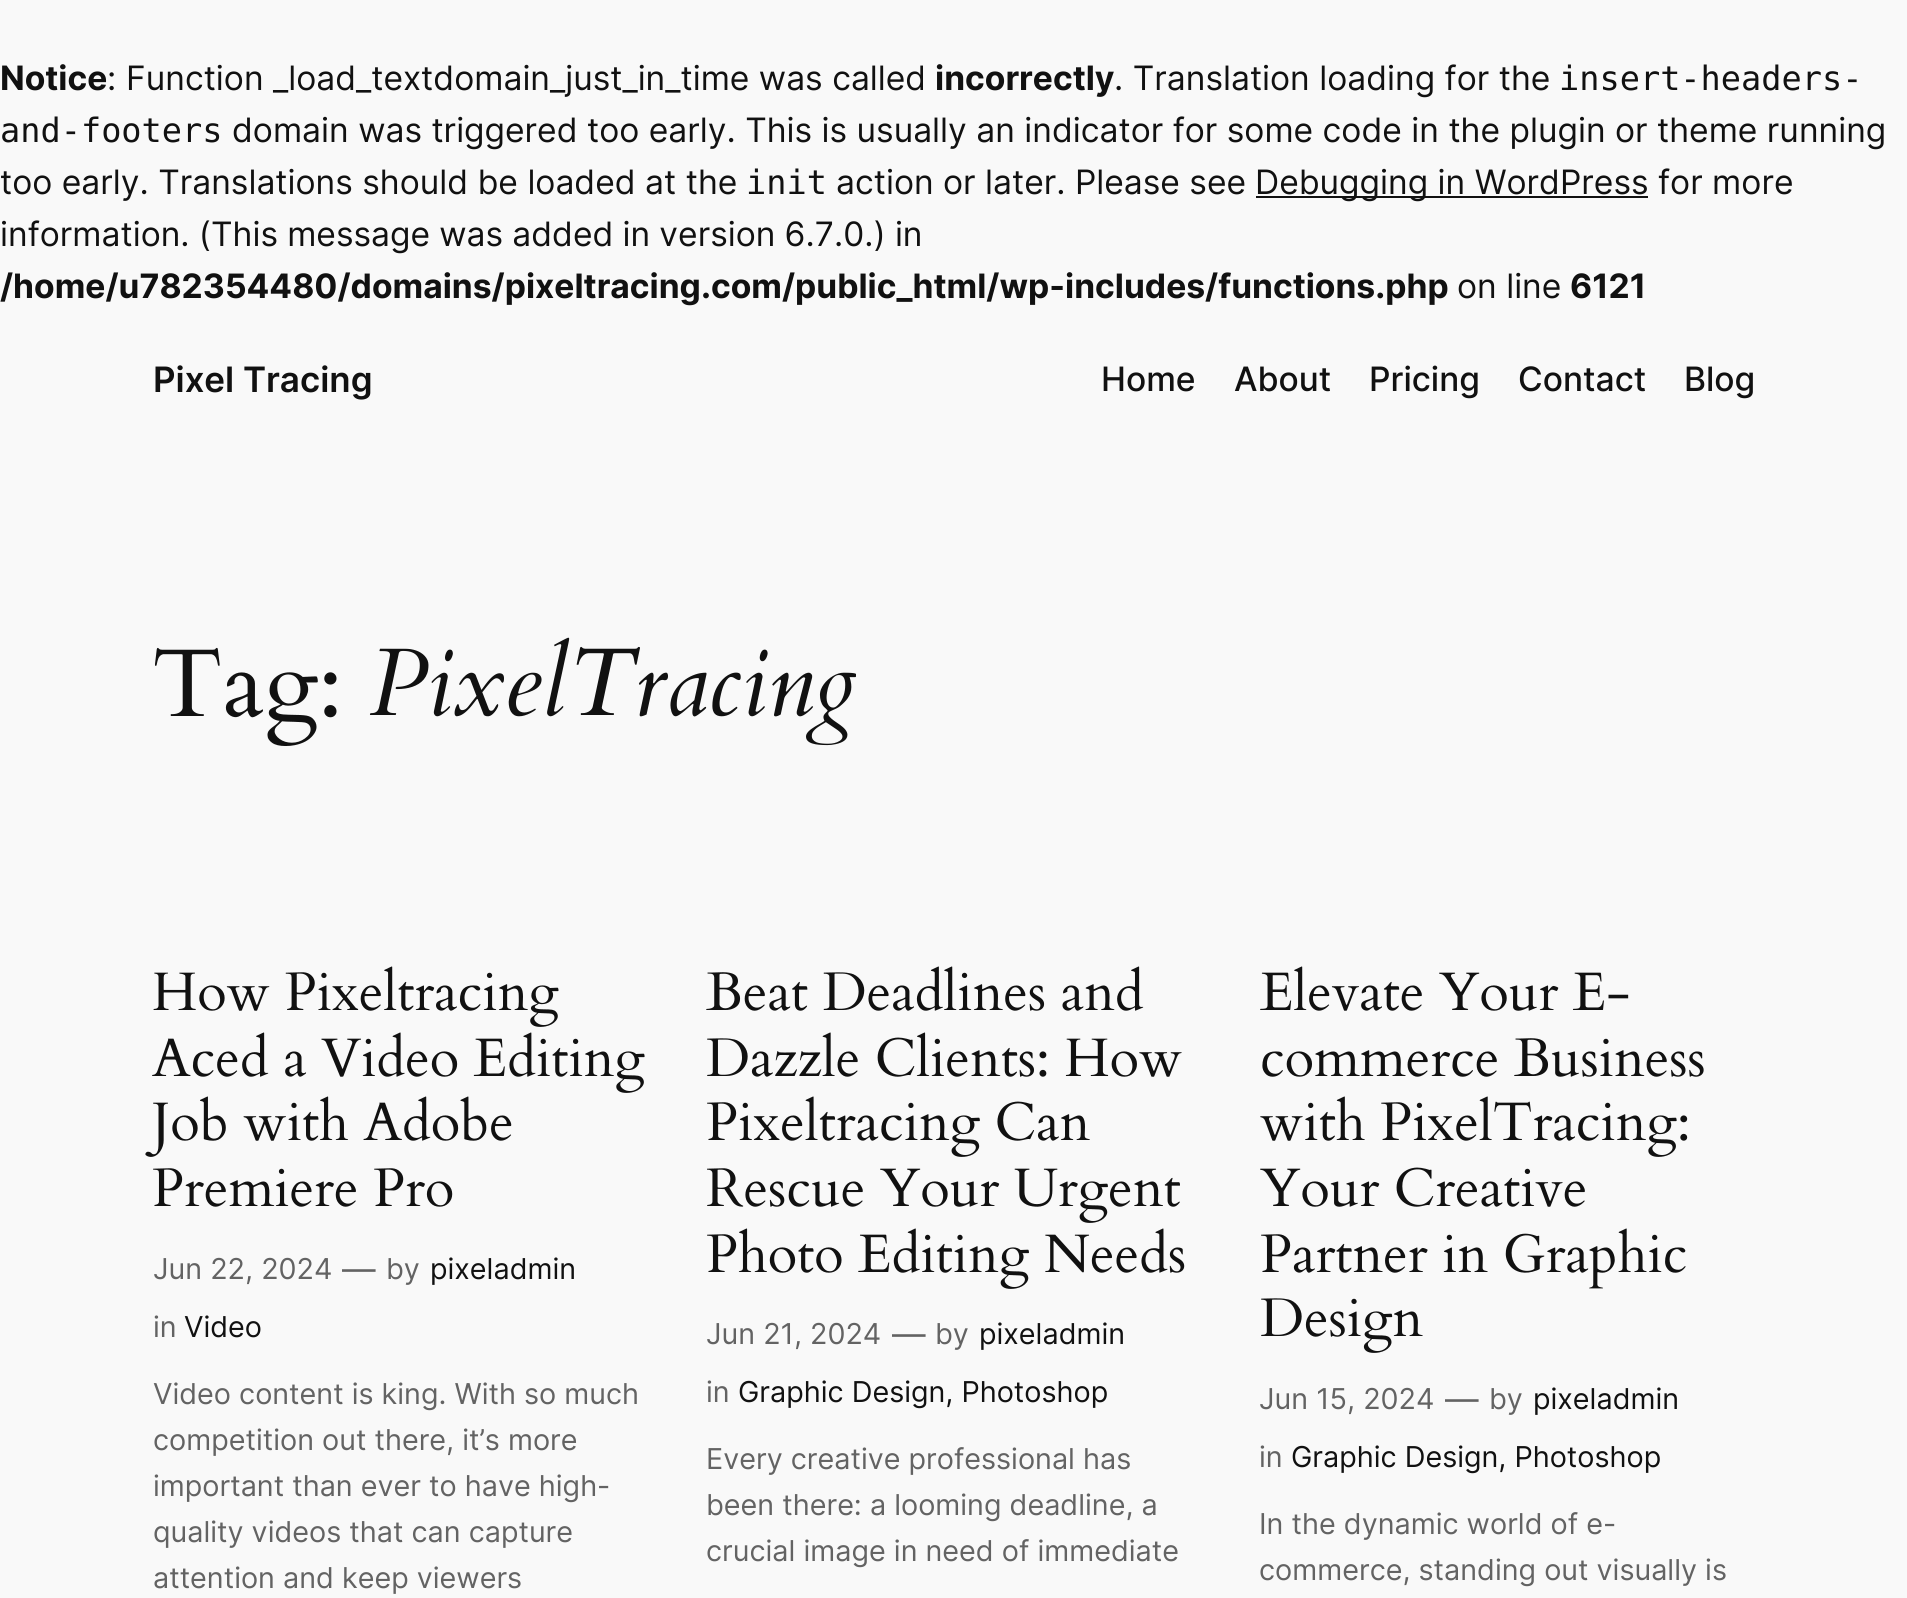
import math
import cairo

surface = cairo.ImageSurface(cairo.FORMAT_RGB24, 1907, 1598)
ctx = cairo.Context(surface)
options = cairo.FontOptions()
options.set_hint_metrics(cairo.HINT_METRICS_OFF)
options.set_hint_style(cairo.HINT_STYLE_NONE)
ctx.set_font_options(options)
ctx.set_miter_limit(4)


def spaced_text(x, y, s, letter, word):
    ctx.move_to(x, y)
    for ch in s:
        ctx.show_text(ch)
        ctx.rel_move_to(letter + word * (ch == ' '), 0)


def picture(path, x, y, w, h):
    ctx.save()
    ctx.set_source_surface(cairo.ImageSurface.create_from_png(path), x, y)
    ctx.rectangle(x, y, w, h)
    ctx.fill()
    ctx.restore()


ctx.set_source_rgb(0.976, 0.976, 0.976)
ctx.paint()
ctx.select_font_face("Inter", cairo.FONT_SLANT_NORMAL, cairo.FONT_WEIGHT_BOLD)
ctx.set_font_size(33.6)
ctx.set_source_rgb(0.067, 0.067, 0.067)
ctx.move_to(0, 90)
ctx.show_text("Notice")
ctx.select_font_face("Inter")
ctx.move_to(107, 90)
ctx.show_text(":")
ctx.move_to(126, 90)
ctx.show_text("Function _load_textdomain_just_in_time was called")
ctx.select_font_face("Inter", cairo.FONT_SLANT_NORMAL, cairo.FONT_WEIGHT_BOLD)
ctx.move_to(935, 90)
ctx.show_text("incorrectly")
ctx.select_font_face("Inter")
ctx.move_to(1114, 90)
ctx.show_text(". Translation loading for the")
ctx.select_font_face("DejaVu Sans Mono")
ctx.move_to(1559, 90)
ctx.show_text("insert-headers-")
ctx.move_to(0, 142)
ctx.show_text("and-footers")
ctx.select_font_face("Inter")
ctx.move_to(232, 142)
ctx.show_text("domain was triggered too early. This is usually an indicator for some code in the plugin or theme running")
ctx.move_to(0, 194)
ctx.show_text("too early. Translations should be loaded at the")
ctx.select_font_face("DejaVu Sans Mono")
ctx.move_to(746, 194)
ctx.show_text("init")
ctx.select_font_face("Inter")
ctx.move_to(836, 194)
ctx.show_text("action or later. Please see")
ctx.rectangle(1256, 196, 392, 2)
ctx.fill()
ctx.move_to(1255, 194)
ctx.show_text("Debugging in WordPress")
ctx.move_to(1658, 194)
ctx.show_text("for more")
spaced_text(0, 246, "information. (This message was added in version 6.7.0.) in", 0, -0.25)
ctx.select_font_face("Inter", cairo.FONT_SLANT_NORMAL, cairo.FONT_WEIGHT_BOLD)
ctx.move_to(0, 298)
ctx.show_text("/home/u782354480/domains/pixeltracing.com/public_html/wp-includes/functions.php")
ctx.select_font_face("Inter")
ctx.move_to(1457, 298)
ctx.show_text("on line")
ctx.select_font_face("Inter", cairo.FONT_SLANT_NORMAL, cairo.FONT_WEIGHT_BOLD)
ctx.move_to(1570, 298)
ctx.show_text("6121")
ctx.select_font_face("Inter SemiBold")
ctx.set_font_size(35)
ctx.move_to(153, 392)
ctx.show_text("Pixel Tracing")
ctx.select_font_face("Inter Medium")
ctx.set_font_size(33.6)
ctx.move_to(1101, 391)
ctx.show_text("Home")
ctx.move_to(1234, 391)
ctx.show_text("About")
ctx.move_to(1369, 391)
ctx.show_text("Pricing")
ctx.move_to(1518, 391)
ctx.show_text("Contact")
ctx.move_to(1684, 391)
ctx.show_text("Blog")
picture("img1.png", 155, 647, 182, 99)
ctx.select_font_face("Cardo", cairo.FONT_SLANT_ITALIC)
ctx.set_font_size(96.25)
ctx.move_to(369, 715)
ctx.show_text("PixelTracing")
picture("img2.png", 153, 966, 406, 61)
picture("img3.png", 152, 1032, 493, 61)
picture("img4.png", 145, 1096, 367, 61)
picture("img5.png", 153, 1168, 300, 39)
ctx.select_font_face("Inter")
ctx.set_font_size(28.75)
ctx.set_source_rgb(0.388, 0.388, 0.388)
ctx.move_to(153, 1279)
ctx.show_text("Jun 22, 2024")
ctx.set_font_size(33.6)
ctx.move_to(342, 1281)
ctx.show_text("—")
ctx.set_font_size(28.75)
ctx.move_to(386, 1279)
ctx.show_text("by")
ctx.set_source_rgb(0.067, 0.067, 0.067)
ctx.move_to(430, 1279)
ctx.show_text("pixeladmin")
ctx.set_source_rgb(0.388, 0.388, 0.388)
ctx.move_to(153, 1337)
ctx.show_text("in")
ctx.set_source_rgb(0.067, 0.067, 0.067)
ctx.move_to(184, 1337)
ctx.show_text("Video")
ctx.set_source_rgb(0.388, 0.388, 0.388)
ctx.move_to(153, 1404)
ctx.show_text("Video content is king. With so much")
ctx.move_to(153, 1450)
ctx.show_text("competition out there, it’s more")
ctx.move_to(153, 1496)
ctx.show_text("important than ever to have high-")
ctx.move_to(153, 1542)
ctx.show_text("quality videos that can capture")
ctx.move_to(153, 1588)
ctx.show_text("attention and keep viewers")
picture("img6.png", 706, 966, 438, 45)
picture("img7.png", 707, 1032, 475, 45)
picture("img8.png", 707, 1096, 383, 61)
picture("img9.png", 707, 1168, 473, 55)
picture("img10.png", 707, 1228, 478, 61)
ctx.move_to(706, 1344)
ctx.show_text("Jun 21, 2024")
ctx.set_font_size(33.6)
ctx.move_to(892, 1346)
ctx.show_text("—")
ctx.set_font_size(28.75)
ctx.move_to(935, 1344)
ctx.show_text("by")
ctx.set_source_rgb(0.067, 0.067, 0.067)
ctx.move_to(979, 1344)
ctx.show_text("pixeladmin")
ctx.set_source_rgb(0.388, 0.388, 0.388)
ctx.move_to(706, 1402)
ctx.show_text("in")
ctx.set_source_rgb(0.067, 0.067, 0.067)
ctx.move_to(738, 1402)
ctx.show_text("Graphic Design, Photoshop")
ctx.set_source_rgb(0.388, 0.388, 0.388)
ctx.move_to(706, 1469)
ctx.show_text("Every creative professional has")
ctx.move_to(706, 1515)
ctx.show_text("been there: a looming deadline, a")
ctx.move_to(706, 1561)
ctx.show_text("crucial image in need of immediate")
picture("img11.png", 1260, 966, 369, 45)
picture("img12.png", 1262, 1038, 442, 39)
picture("img13.png", 1260, 1096, 428, 61)
picture("img14.png", 1260, 1167, 325, 40)
picture("img15.png", 1261, 1228, 425, 61)
picture("img16.png", 1261, 1298, 162, 55)
ctx.move_to(1259, 1409)
ctx.show_text("Jun 15, 2024")
ctx.set_font_size(33.6)
ctx.move_to(1445, 1411)
ctx.show_text("—")
ctx.set_font_size(28.75)
ctx.move_to(1489, 1409)
ctx.show_text("by")
ctx.set_source_rgb(0.067, 0.067, 0.067)
ctx.move_to(1533, 1409)
ctx.show_text("pixeladmin")
ctx.set_source_rgb(0.388, 0.388, 0.388)
ctx.move_to(1259, 1467)
ctx.show_text("in")
ctx.set_source_rgb(0.067, 0.067, 0.067)
ctx.move_to(1291, 1467)
ctx.show_text("Graphic Design, Photoshop")
ctx.set_source_rgb(0.388, 0.388, 0.388)
ctx.move_to(1259, 1534)
ctx.show_text("In the dynamic world of e-")
ctx.move_to(1259, 1580)
ctx.show_text("commerce, standing out visually is")
surface.write_to_png("page.png")
